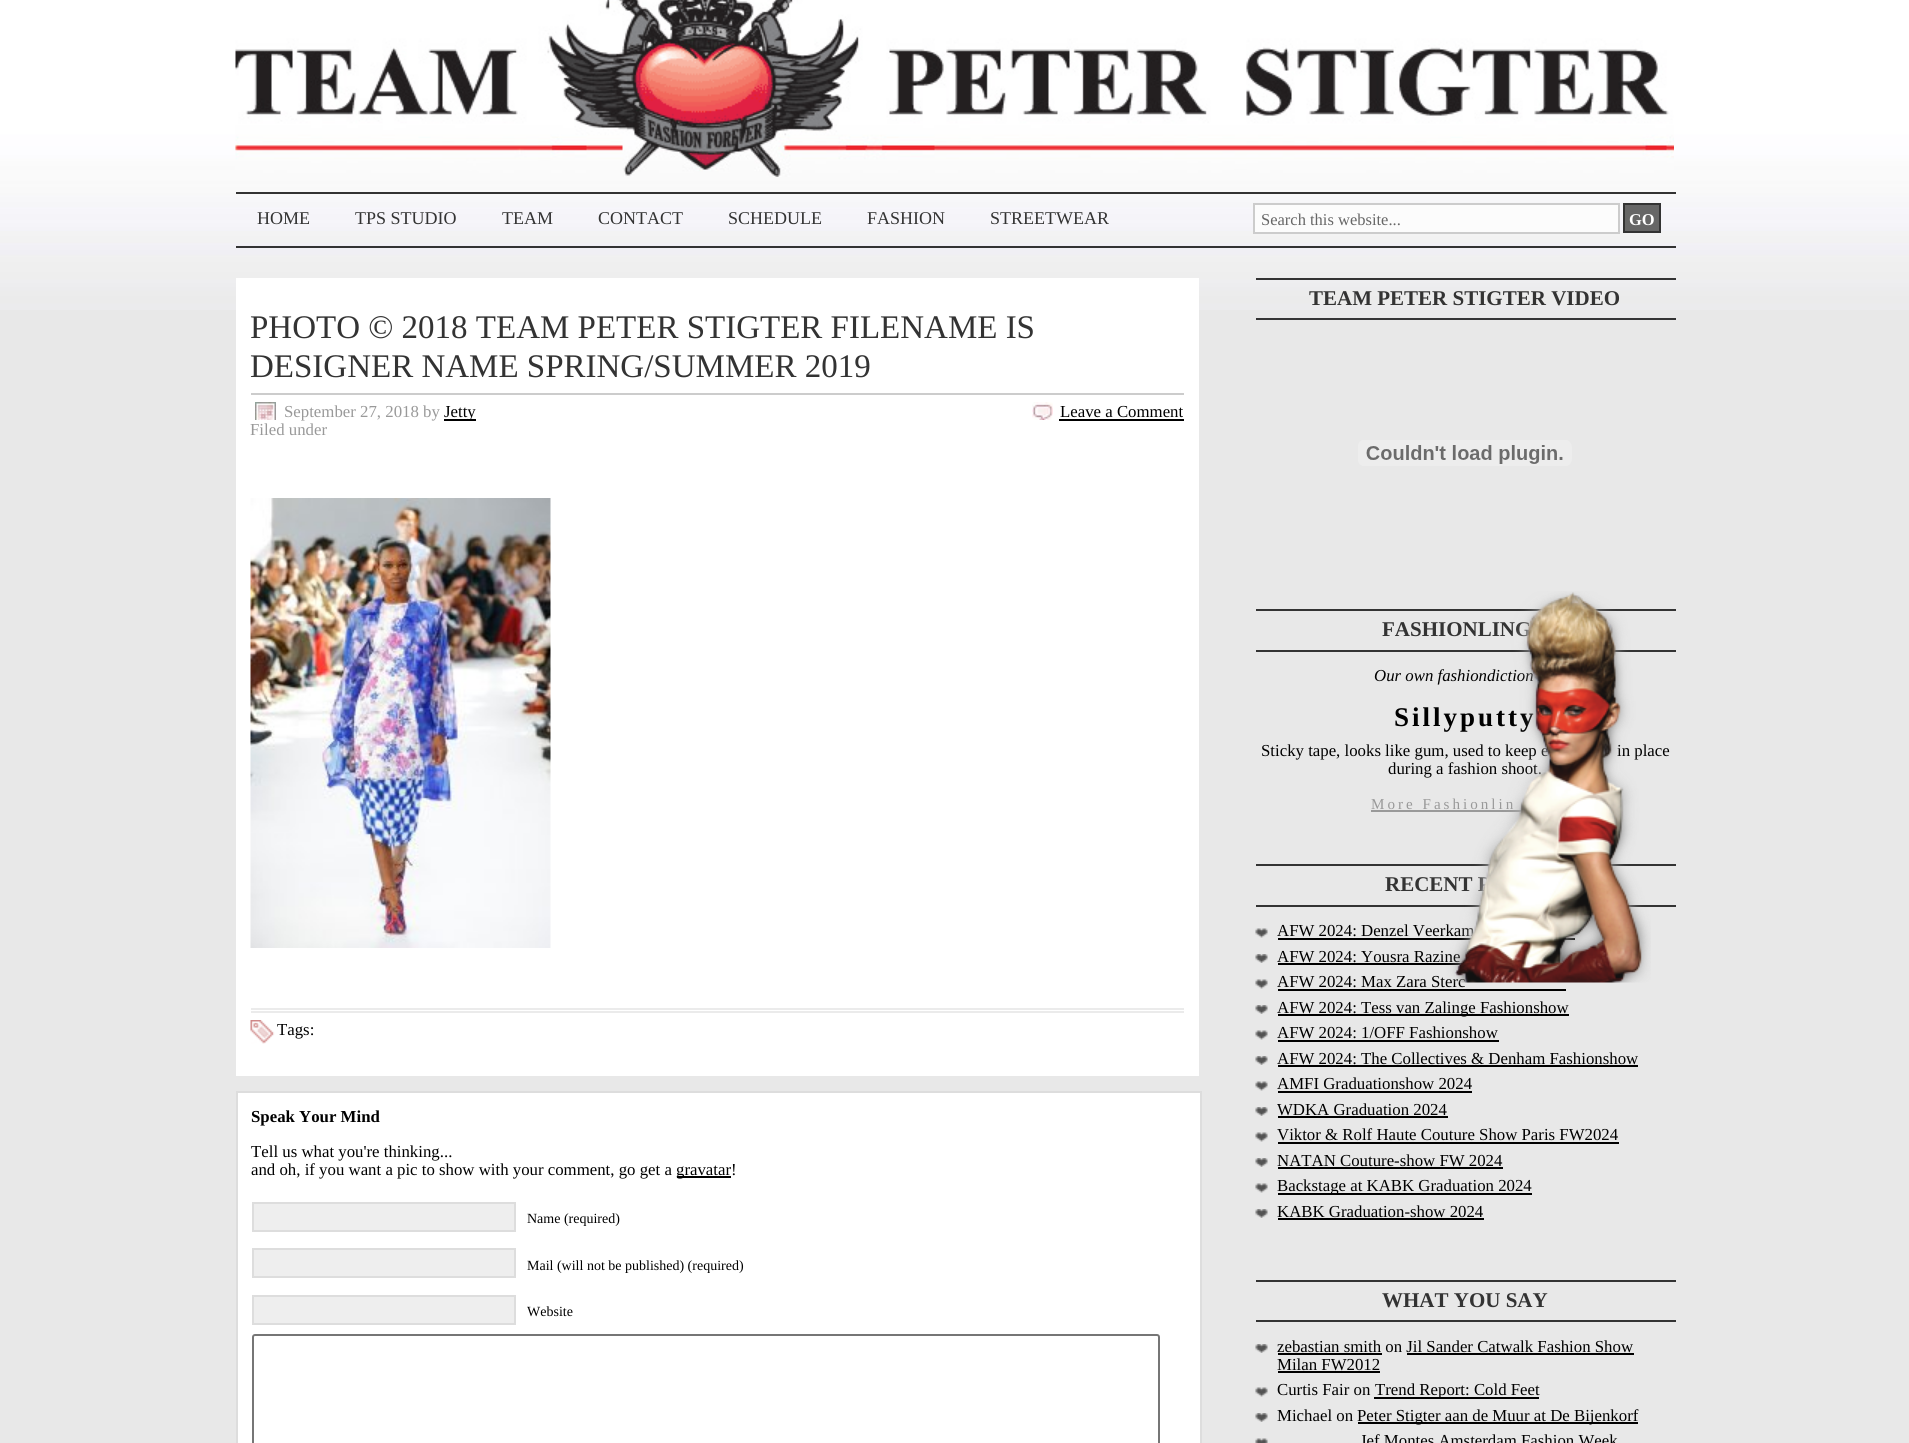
import math
import cairo

surface = cairo.ImageSurface(cairo.FORMAT_RGB24, 1909, 1443)
ctx = cairo.Context(surface)
options = cairo.FontOptions()
options.set_hint_metrics(cairo.HINT_METRICS_OFF)
options.set_hint_style(cairo.HINT_STYLE_NONE)
ctx.set_font_options(options)
ctx.set_miter_limit(4)


def spaced_text(x, y, s, letter, word):
    ctx.move_to(x, y)
    for ch in s:
        ctx.show_text(ch)
        ctx.rel_move_to(letter + word * (ch == ' '), 0)


def round_rect(x, y, w, h, r):
    ctx.new_sub_path()
    for i, (u, v) in enumerate([(x + w - r, y + h - r), (x + r, y + h - r), (x + r, y + r), (x + w - r, y + r)]):
        ctx.arc(u, v, r, i * math.pi / 2, (i + 1) * math.pi / 2)
    ctx.close_path()


def picture(path, x, y, w, h):
    ctx.save()
    ctx.set_source_surface(cairo.ImageSurface.create_from_png(path), x, y)
    ctx.rectangle(x, y, w, h)
    ctx.fill()
    ctx.restore()


ctx.set_source_rgb(0.91, 0.91, 0.91)
ctx.paint()
picture("img1.png", 0, 0, 1909, 310)
picture("img2.png", 235, 0, 1439, 177)
ctx.set_source_rgb(0.2, 0.2, 0.2)
ctx.rectangle(236, 192, 1440, 2)
ctx.fill()
ctx.rectangle(236, 246, 1440, 2)
ctx.fill()
ctx.select_font_face("Liberation Serif")
ctx.set_font_size(18)
ctx.move_to(257, 224)
ctx.show_text("HOME")
ctx.move_to(355, 224)
ctx.show_text("TPS STUDIO")
ctx.move_to(502, 224)
ctx.show_text("TEAM")
ctx.move_to(598, 224)
ctx.show_text("CONTACT")
ctx.move_to(728, 224)
ctx.show_text("SCHEDULE")
ctx.move_to(867, 224)
ctx.show_text("FASHION")
ctx.move_to(990, 224)
ctx.show_text("STREETWEAR")
ctx.set_source_rgb(0.988, 0.988, 0.988)
ctx.rectangle(1254, 204, 365, 29)
ctx.fill_preserve()
ctx.set_source_rgb(0.8, 0.8, 0.8)
ctx.stroke()
ctx.save()
ctx.rectangle(1262, 210, 357, 18)
ctx.clip()
ctx.set_font_size(16.5)
ctx.set_source_rgb(0.4, 0.4, 0.4)
ctx.move_to(1261, 225)
ctx.show_text("Search this website...")
ctx.restore()
ctx.set_source_rgb(0.4, 0.4, 0.4)
ctx.rectangle(1624, 204, 36, 28)
ctx.fill_preserve()
ctx.set_source_rgb(0.2, 0.2, 0.2)
ctx.stroke()
ctx.select_font_face("Liberation Serif", cairo.FONT_SLANT_NORMAL, cairo.FONT_WEIGHT_BOLD)
ctx.set_font_size(16.5)
ctx.set_source_rgb(1, 1, 1)
ctx.move_to(1629, 225)
ctx.show_text("GO")
ctx.rectangle(236, 278, 963, 798)
ctx.fill()
ctx.select_font_face("Liberation Serif")
ctx.set_font_size(33)
ctx.set_source_rgb(0.2, 0.2, 0.2)
ctx.move_to(250, 338)
ctx.show_text("PHOTO © 2018 TEAM PETER STIGTER FILENAME IS")
ctx.move_to(250, 377)
ctx.show_text("DESIGNER NAME SPRING/SUMMER 2019")
ctx.set_source_rgb(0.8, 0.8, 0.8)
ctx.rectangle(251, 393, 933, 2)
ctx.fill()
picture("img3.png", 255, 402, 21, 18)
ctx.set_font_size(16.8)
ctx.set_source_rgb(0.6, 0.6, 0.6)
ctx.move_to(284, 417)
ctx.show_text("September 27, 2018 by")
ctx.set_source_rgb(0, 0, 0)
ctx.rectangle(444, 419, 32, 2)
ctx.fill()
ctx.move_to(444, 417)
ctx.show_text("Jetty")
ctx.set_source_rgb(0.6, 0.6, 0.6)
ctx.move_to(250, 435)
ctx.show_text("Filed under")
picture("img4.png", 1032, 402, 21, 18)
ctx.set_source_rgb(0, 0, 0)
ctx.move_to(1060, 417)
ctx.show_text("Leave a Comment")
ctx.rectangle(1059, 419, 125, 2)
ctx.fill()
picture("img5.png", 250, 498, 301, 450)
ctx.set_source_rgb(0.918, 0.918, 0.918)
ctx.rectangle(251, 1008, 933, 2)
ctx.fill()
ctx.rectangle(251, 1011, 933, 2)
ctx.fill()
picture("img6.png", 250, 1020, 25, 24)
ctx.set_source_rgb(0, 0, 0)
ctx.move_to(277, 1035)
ctx.show_text("Tags:")
ctx.set_source_rgb(1, 1, 1)
ctx.rectangle(237, 1092, 964, 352)
ctx.fill_preserve()
ctx.set_source_rgb(0.867, 0.867, 0.867)
ctx.stroke()
ctx.select_font_face("Liberation Serif", cairo.FONT_SLANT_NORMAL, cairo.FONT_WEIGHT_BOLD)
ctx.set_source_rgb(0, 0, 0)
ctx.move_to(251, 1122)
ctx.show_text("Speak Your Mind")
ctx.select_font_face("Liberation Serif")
ctx.move_to(251, 1157)
ctx.show_text("Tell us what you're thinking...")
ctx.move_to(251, 1175)
ctx.show_text("and oh, if you want a pic to show with your comment, go get a")
ctx.rectangle(677, 1176, 54, 2)
ctx.fill()
ctx.move_to(676, 1175)
ctx.show_text("gravatar!")
ctx.set_source_rgb(0.933, 0.933, 0.933)
ctx.rectangle(253, 1203, 262, 28)
ctx.fill_preserve()
ctx.set_source_rgb(0.867, 0.867, 0.867)
ctx.stroke()
ctx.set_font_size(14)
ctx.set_source_rgb(0, 0, 0)
ctx.move_to(527, 1223)
ctx.show_text("Name (required)")
ctx.set_source_rgb(0.933, 0.933, 0.933)
ctx.rectangle(253, 1249, 262, 28)
ctx.fill_preserve()
ctx.set_source_rgb(0.867, 0.867, 0.867)
ctx.stroke()
ctx.set_source_rgb(0, 0, 0)
ctx.move_to(527, 1270)
ctx.show_text("Mail (will not be published) (required)")
ctx.set_source_rgb(0.933, 0.933, 0.933)
ctx.rectangle(253, 1296, 262, 28)
ctx.fill_preserve()
ctx.set_source_rgb(0.867, 0.867, 0.867)
ctx.stroke()
ctx.set_source_rgb(0, 0, 0)
ctx.move_to(527, 1316)
ctx.show_text("Website")
round_rect(253, 1335, 906, 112, 2)
ctx.set_source_rgb(0.463, 0.463, 0.463)
ctx.stroke()
ctx.set_source_rgb(0.2, 0.2, 0.2)
ctx.rectangle(1256, 278, 420, 2)
ctx.fill()
ctx.rectangle(1256, 318, 420, 2)
ctx.fill()
ctx.select_font_face("Liberation Serif", cairo.FONT_SLANT_NORMAL, cairo.FONT_WEIGHT_BOLD)
ctx.set_font_size(21)
ctx.move_to(1309, 305)
ctx.show_text("TEAM PETER STIGTER VIDEO")
picture("img7.png", 1358, 440, 214, 26)
ctx.rectangle(1256, 609, 420, 2)
ctx.fill()
ctx.rectangle(1256, 650, 420, 2)
ctx.fill()
ctx.move_to(1382, 636)
ctx.show_text("FASHIONLING")
ctx.select_font_face("Liberation Serif", cairo.FONT_SLANT_ITALIC)
ctx.set_font_size(16.8)
ctx.set_source_rgb(0, 0, 0)
ctx.move_to(1374, 681)
ctx.show_text("Our own fashiondiction")
ctx.select_font_face("Liberation Serif", cairo.FONT_SLANT_NORMAL, cairo.FONT_WEIGHT_BOLD)
ctx.set_font_size(27)
spaced_text(1394, 726, "Sillyputty", 3, 0)
ctx.select_font_face("Liberation Serif")
ctx.set_font_size(16.8)
ctx.move_to(1261, 756)
ctx.show_text("Sticky tape, looks like gum, used to keep e")
ctx.move_to(1617, 756)
ctx.show_text("in place")
ctx.move_to(1388, 774)
ctx.show_text("during a fashion shoot.")
ctx.set_font_size(15.1)
ctx.set_source_rgb(0.6, 0.6, 0.6)
spaced_text(1371, 809, "More Fashionlin", 3, 0)
ctx.rectangle(1371, 810, 151, 2)
ctx.fill()
ctx.set_source_rgb(0.2, 0.2, 0.2)
ctx.rectangle(1256, 864, 420, 2)
ctx.fill()
ctx.rectangle(1256, 905, 420, 2)
ctx.fill()
ctx.select_font_face("Liberation Serif", cairo.FONT_SLANT_NORMAL, cairo.FONT_WEIGHT_BOLD)
ctx.set_font_size(21)
ctx.move_to(1385, 891)
ctx.show_text("RECENT P")
picture("img8.png", 1255, 928, 13, 10)
ctx.select_font_face("Liberation Serif")
ctx.set_font_size(16.8)
ctx.set_source_rgb(0, 0, 0)
ctx.move_to(1277, 936)
ctx.show_text("AFW 2024: Denzel Veerkam")
ctx.rectangle(1278, 938, 297, 2)
ctx.fill()
picture("img9.png", 1255, 954, 13, 9)
ctx.move_to(1277, 962)
ctx.show_text("AFW 2024: Yousra Razine")
ctx.rectangle(1278, 963, 285, 2)
ctx.fill()
picture("img8.png", 1255, 979, 13, 10)
ctx.move_to(1277, 987)
ctx.show_text("AFW 2024: Max Zara Sterc")
ctx.rectangle(1278, 989, 288, 2)
ctx.fill()
picture("img9.png", 1255, 1005, 13, 9)
ctx.rectangle(1278, 1014, 291, 2)
ctx.fill()
ctx.move_to(1277, 1013)
ctx.show_text("AFW 2024: Tess van Zalinge Fashionshow")
picture("img8.png", 1255, 1030, 13, 10)
ctx.move_to(1277, 1038)
ctx.show_text("AFW 2024: 1/OFF Fashionshow")
ctx.rectangle(1278, 1040, 221, 2)
ctx.fill()
picture("img9.png", 1255, 1056, 13, 9)
ctx.move_to(1277, 1064)
ctx.show_text("AFW 2024: The Collectives & Denham Fashionshow")
ctx.rectangle(1278, 1065, 360, 2)
ctx.fill()
picture("img8.png", 1255, 1081, 13, 10)
ctx.move_to(1277, 1089)
ctx.show_text("AMFI Graduationshow 2024")
ctx.rectangle(1278, 1091, 194, 2)
ctx.fill()
picture("img9.png", 1255, 1107, 13, 9)
ctx.move_to(1277, 1115)
ctx.show_text("WDKA Graduation 2024")
ctx.rectangle(1278, 1116, 170, 2)
ctx.fill()
picture("img8.png", 1255, 1132, 13, 10)
ctx.move_to(1277, 1140)
ctx.show_text("Viktor & Rolf Haute Couture Show Paris FW2024")
ctx.rectangle(1278, 1142, 341, 2)
ctx.fill()
picture("img9.png", 1255, 1158, 13, 9)
ctx.move_to(1277, 1166)
ctx.show_text("NATAN Couture-show FW 2024")
ctx.rectangle(1278, 1167, 225, 2)
ctx.fill()
picture("img8.png", 1255, 1183, 13, 10)
ctx.rectangle(1278, 1193, 254, 2)
ctx.fill()
ctx.move_to(1277, 1191)
ctx.show_text("Backstage at KABK Graduation 2024")
picture("img9.png", 1255, 1209, 13, 9)
ctx.move_to(1277, 1217)
ctx.show_text("KABK Graduation-show 2024")
ctx.rectangle(1278, 1218, 206, 2)
ctx.fill()
ctx.set_source_rgb(0.2, 0.2, 0.2)
ctx.rectangle(1256, 1280, 420, 2)
ctx.fill()
ctx.rectangle(1256, 1320, 420, 2)
ctx.fill()
ctx.select_font_face("Liberation Serif", cairo.FONT_SLANT_NORMAL, cairo.FONT_WEIGHT_BOLD)
ctx.set_font_size(21)
ctx.move_to(1382, 1307)
ctx.show_text("WHAT YOU SAY")
picture("img9.png", 1255, 1344, 13, 9)
ctx.select_font_face("Liberation Serif")
ctx.set_font_size(16.8)
ctx.set_source_rgb(0, 0, 0)
ctx.move_to(1277, 1352)
ctx.show_text("zebastian smith on Jil Sander Catwalk Fashion Show")
ctx.rectangle(1278, 1353, 104, 2)
ctx.fill()
ctx.move_to(1277, 1370)
ctx.show_text("Milan FW2012")
ctx.rectangle(1407, 1353, 227, 2)
ctx.fill()
ctx.rectangle(1278, 1371, 102, 2)
ctx.fill()
picture("img8.png", 1255, 1387, 13, 10)
ctx.move_to(1277, 1395)
ctx.show_text("Curtis Fair on")
ctx.rectangle(1374, 1397, 165, 2)
ctx.fill()
ctx.move_to(1375, 1395)
ctx.show_text("Trend Report: Cold Feet")
picture("img9.png", 1255, 1413, 13, 9)
ctx.move_to(1277, 1421)
ctx.show_text("Michael on")
ctx.rectangle(1358, 1422, 280, 2)
ctx.fill()
ctx.move_to(1357, 1421)
ctx.show_text("Peter Stigter aan de Muur at De Bijenkorf")
picture("img10.png", 1255, 1438, 13, 5)
ctx.move_to(1360, 1446)
ctx.show_text("Jef Montes Amsterdam Fashion Week")
picture("img11.png", 1446, 591, 205, 392)
surface.write_to_png("page.png")
